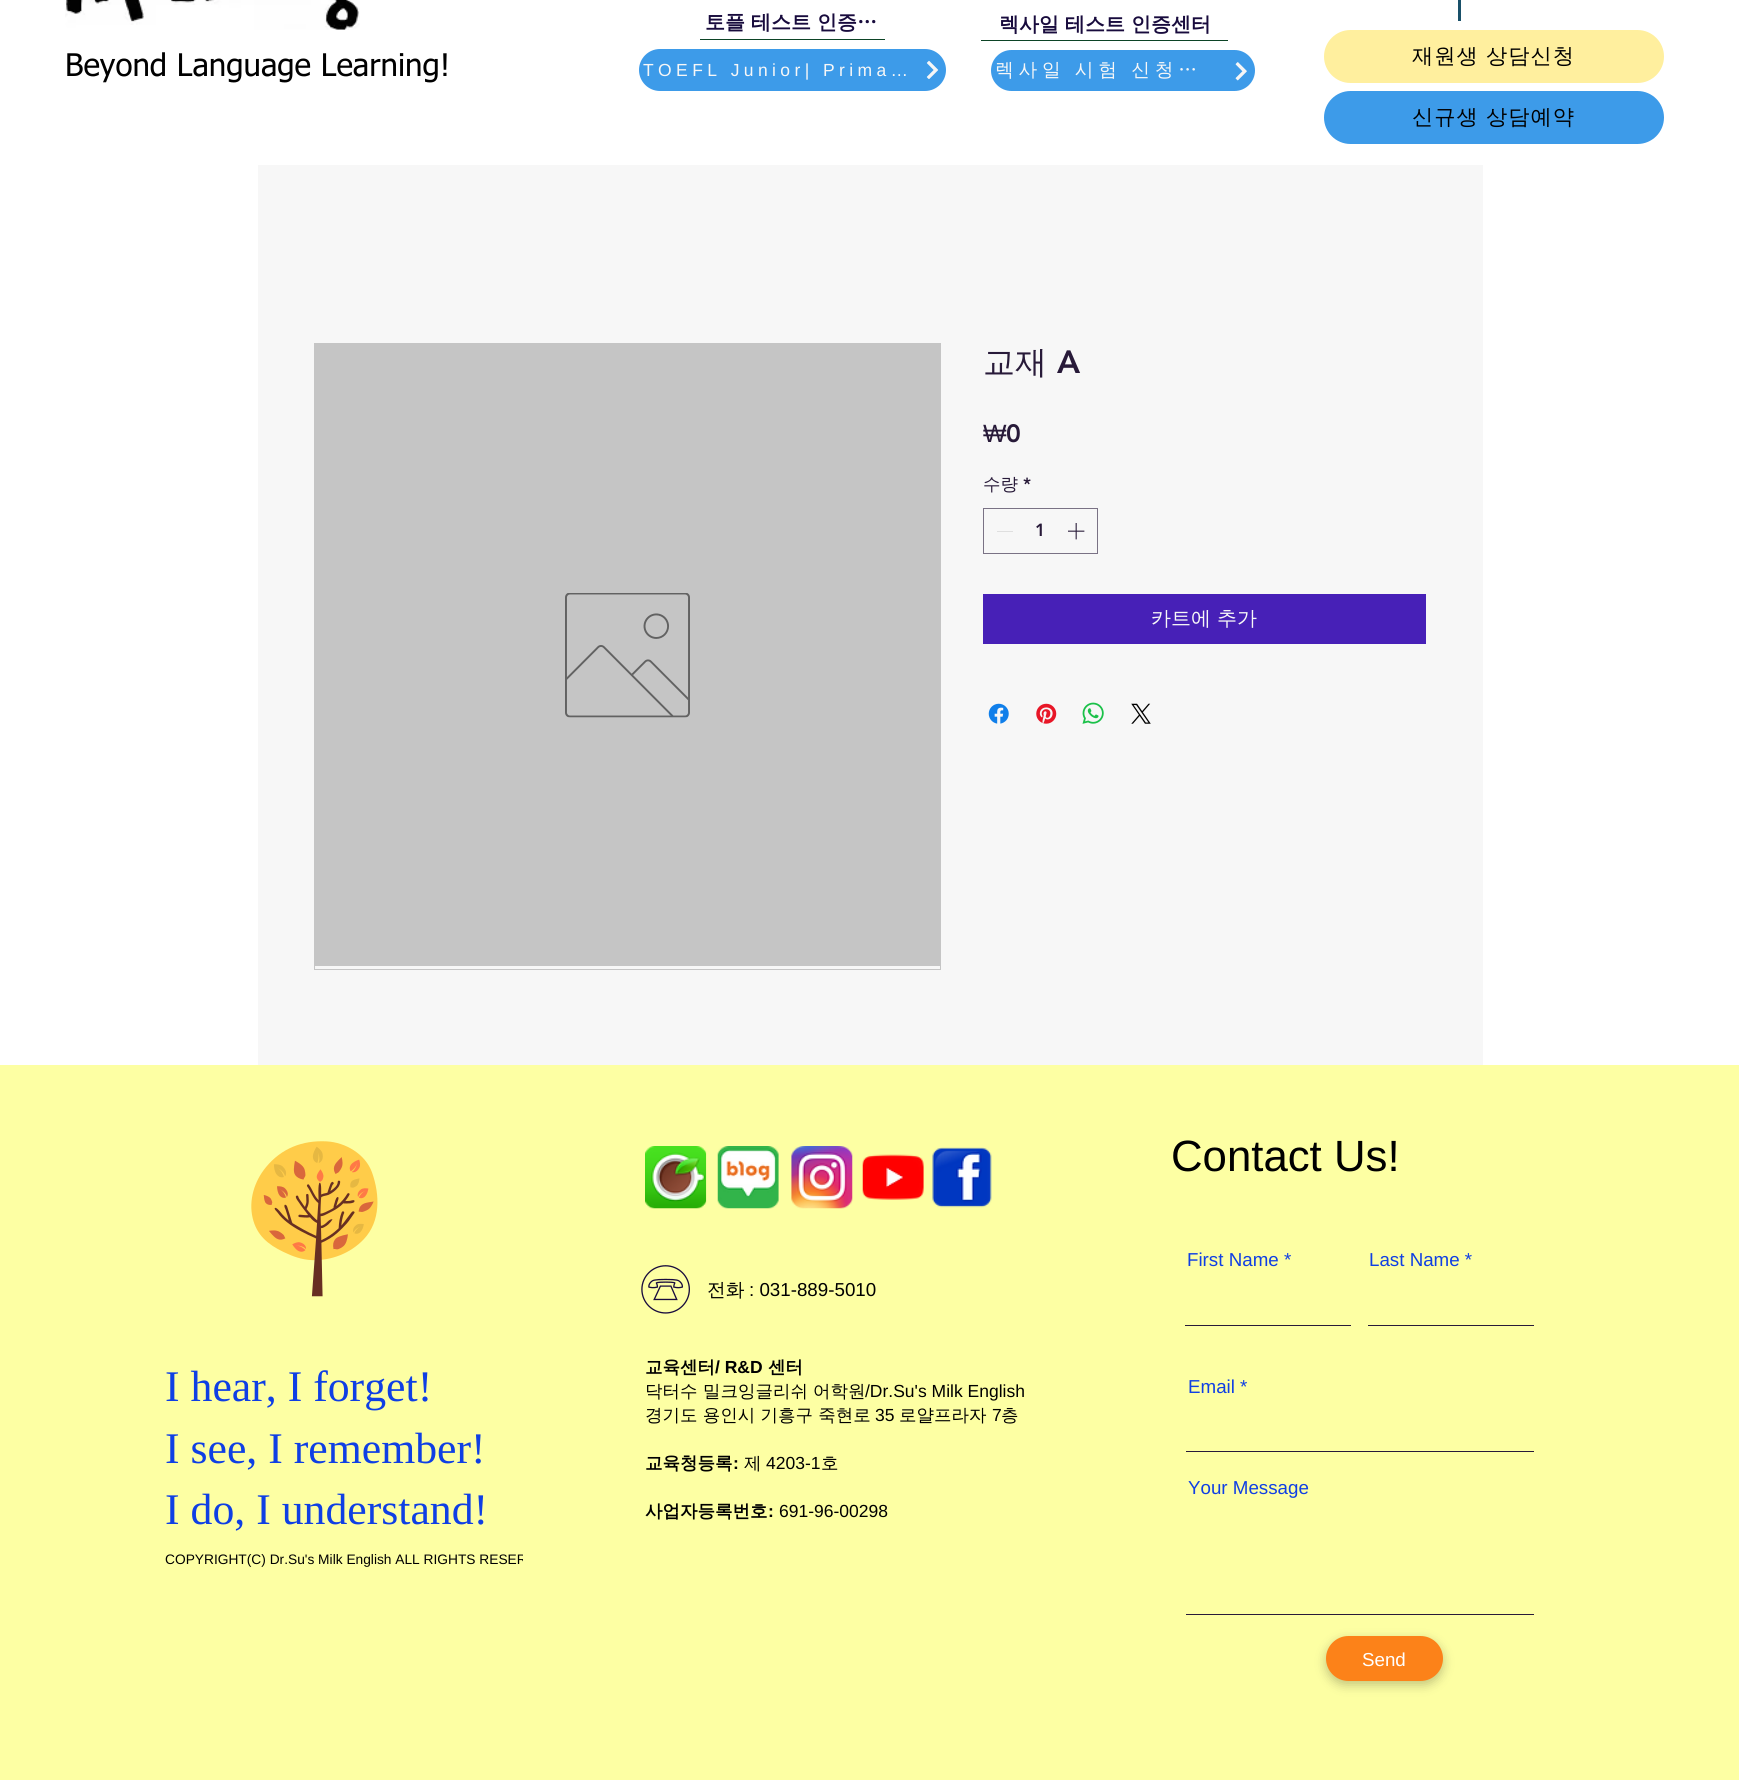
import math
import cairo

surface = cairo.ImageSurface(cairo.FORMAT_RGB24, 1739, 1780)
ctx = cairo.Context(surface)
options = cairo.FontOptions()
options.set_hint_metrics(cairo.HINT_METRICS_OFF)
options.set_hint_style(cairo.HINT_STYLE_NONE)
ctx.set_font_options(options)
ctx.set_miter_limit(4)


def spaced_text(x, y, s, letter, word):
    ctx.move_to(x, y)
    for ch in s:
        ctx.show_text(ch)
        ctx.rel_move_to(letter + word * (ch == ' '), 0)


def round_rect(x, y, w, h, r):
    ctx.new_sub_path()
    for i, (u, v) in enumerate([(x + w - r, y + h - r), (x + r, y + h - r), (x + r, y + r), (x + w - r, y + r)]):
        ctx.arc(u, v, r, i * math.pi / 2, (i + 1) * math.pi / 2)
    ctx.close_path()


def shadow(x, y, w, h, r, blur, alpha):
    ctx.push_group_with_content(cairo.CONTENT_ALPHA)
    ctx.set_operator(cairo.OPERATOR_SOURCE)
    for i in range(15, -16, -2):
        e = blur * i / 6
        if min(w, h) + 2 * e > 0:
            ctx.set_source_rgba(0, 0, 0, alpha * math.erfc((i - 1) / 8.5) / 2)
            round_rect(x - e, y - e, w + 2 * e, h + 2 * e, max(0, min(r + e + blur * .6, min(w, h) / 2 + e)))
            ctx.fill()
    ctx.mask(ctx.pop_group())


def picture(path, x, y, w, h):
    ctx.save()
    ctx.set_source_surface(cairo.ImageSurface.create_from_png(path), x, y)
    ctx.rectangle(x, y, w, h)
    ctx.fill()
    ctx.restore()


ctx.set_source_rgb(1, 1, 1)
ctx.paint()
picture("img1.png", 65, 0, 295, 30)
ctx.set_source_rgb(0.098, 0.314, 0.412)
ctx.new_path()
ctx.move_to(1489, -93)
ctx.line_to(1487, -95)
ctx.line_to(1461, -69)
ctx.line_to(1461, -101)
ctx.line_to(1475, -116)
ctx.line_to(1473, -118)
ctx.line_to(1461, -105)
ctx.line_to(1461, -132)
ctx.line_to(1458, -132)
ctx.line_to(1458, -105)
ctx.line_to(1445, -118)
ctx.line_to(1443, -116)
ctx.line_to(1458, -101)
ctx.line_to(1458, -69)
ctx.line_to(1432, -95)
ctx.line_to(1430, -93)
ctx.line_to(1458, -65)
ctx.line_to(1458, 21)
ctx.line_to(1461, 21)
ctx.line_to(1461, -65)
ctx.close_path()
ctx.fill()
ctx.set_source_rgb(0.047, 0.267, 0.149)
ctx.rectangle(700, 39, 185, 1)
ctx.fill()
ctx.select_font_face("WenQuanYi Zen Hei", cairo.FONT_SLANT_NORMAL, cairo.FONT_WEIGHT_BOLD)
ctx.set_font_size(20)
ctx.set_source_rgb(0.094, 0.043, 0.239)
ctx.move_to(705, 29)
ctx.show_text("토플 테스트 인증…")
ctx.set_source_rgb(0.047, 0.267, 0.149)
ctx.rectangle(981, 40, 247, 1)
ctx.fill()
ctx.set_source_rgb(0.094, 0.043, 0.239)
ctx.move_to(999, 31)
ctx.show_text("렉사일 테스트 인증센터")
ctx.select_font_face("tahoma")
ctx.set_font_size(31.25)
ctx.set_source_rgb(0, 0, 0)
ctx.move_to(65, 76)
ctx.show_text("Beyond Language Learning!")
ctx.set_source_rgb(0.239, 0.608, 0.914)
round_rect(639, 49, 307, 42, 21)
ctx.fill()
ctx.select_font_face("Liberation Sans")
ctx.set_font_size(17.5)
ctx.set_source_rgb(0.965, 0.965, 0.965)
spaced_text(643, 76, "TOEFL Junior| Prima…", 4.4, 0)
picture("img2.png", 926, 60, 13, 19)
ctx.set_source_rgb(0.239, 0.608, 0.914)
round_rect(991, 50, 264, 41, 20.5)
ctx.fill()
ctx.select_font_face("WenQuanYi Zen Hei Medium")
ctx.set_font_size(18.75)
ctx.set_source_rgb(0.965, 0.965, 0.965)
spaced_text(995, 76, "렉사일 시험 신청…", 4.75, -1)
picture("img3.png", 1235, 62, 12, 19)
ctx.set_source_rgb(1, 0.937, 0.62)
round_rect(1324, 30, 340, 53, 26.5)
ctx.fill()
ctx.set_font_size(21.25)
ctx.set_source_rgb(0, 0, 0)
spaced_text(1412, 63, "재원생 상담신청", 1, 0)
ctx.set_source_rgb(0.239, 0.608, 0.914)
round_rect(1324, 91, 340, 53, 26.5)
ctx.fill()
ctx.set_source_rgb(0, 0, 0)
spaced_text(1412, 124, "신규생 상담예약", 1, 0)
ctx.set_source_rgb(0.965, 0.965, 0.965)
ctx.rectangle(258, 165, 1225, 900)
ctx.fill()
ctx.rectangle(314.5, 343.5, 626, 626)
ctx.set_source_rgb(0.773, 0.773, 0.773)
ctx.set_line_width(1)
ctx.stroke()
ctx.rectangle(315, 344, 625, 622)
ctx.fill()
picture("img4.png", 565, 593, 125, 125)
ctx.set_font_size(32)
ctx.set_source_rgb(0.157, 0.102, 0.224)
ctx.move_to(983, 373)
ctx.show_text("교재")
ctx.select_font_face("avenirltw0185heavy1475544 Black")
ctx.move_to(1057, 373)
ctx.show_text("A")
ctx.select_font_face("Liberation Sans")
ctx.set_font_size(25)
ctx.move_to(983, 442)
ctx.show_text("₩")
ctx.select_font_face("avenirltw0185heavy1475544 Black")
ctx.move_to(1006, 442)
ctx.show_text("0")
ctx.select_font_face("WenQuanYi Zen Hei Medium")
ctx.set_font_size(17.5)
ctx.move_to(983, 490)
ctx.show_text("수량")
ctx.select_font_face("avenirltw0185heavy1475544 Black")
ctx.move_to(1023, 490)
ctx.show_text("*")
ctx.rectangle(983.5, 508.5, 114, 45)
ctx.set_source_rgb(0.478, 0.447, 0.522)
ctx.stroke()
ctx.set_source_rgb(0.875, 0.875, 0.875)
ctx.rectangle(997, 531, 16, 1)
ctx.fill()
ctx.set_source_rgb(0.157, 0.102, 0.224)
ctx.move_to(1035, 536)
ctx.show_text("1")
picture("img5.png", 1068, 523, 17, 17)
ctx.set_source_rgb(0.278, 0.125, 0.718)
ctx.rectangle(983, 594, 443, 50)
ctx.fill()
ctx.select_font_face("WenQuanYi Zen Hei Medium")
ctx.set_font_size(20)
ctx.set_source_rgb(0.965, 0.965, 0.965)
ctx.move_to(1151, 625)
ctx.show_text("카트에 추가")
picture("img6.png", 988, 703, 21, 21)
picture("img7.png", 1036, 703, 21, 21)
picture("img8.png", 1082, 702, 22, 22)
picture("img9.png", 1131, 703, 20, 21)
ctx.set_source_rgb(0.992, 1, 0.639)
ctx.rectangle(0, 1065, 523, 654)
ctx.fill()
picture("img10.png", 251, 1141, 127, 156)
ctx.select_font_face("Liberation Serif")
ctx.set_font_size(43.75)
ctx.set_source_rgb(0.059, 0.247, 0.894)
ctx.move_to(165, 1401)
ctx.show_text("I hear, I forget!")
ctx.move_to(165, 1463)
ctx.show_text("I see, I remember!")
ctx.move_to(165, 1524)
ctx.show_text("I do, I understand!")
ctx.select_font_face("Liberation Sans")
ctx.set_font_size(13.75)
ctx.set_source_rgb(0, 0, 0)
ctx.move_to(165, 1564)
ctx.show_text("COPYRIGHT(C) Dr.Su's Milk English ALL RIGHTS RESER")
ctx.set_source_rgb(0.992, 1, 0.639)
ctx.rectangle(523, 1065, 1216, 654)
ctx.fill()
picture("img11.png", 645, 1146, 62, 63)
picture("img12.png", 717, 1146, 62, 63)
picture("img13.png", 791, 1146, 62, 63)
picture("img14.png", 862, 1154, 62, 46)
picture("img15.png", 932, 1147, 60, 61)
picture("img16.png", 641, 1265, 49, 49)
ctx.select_font_face("WenQuanYi Zen Hei Medium")
ctx.set_font_size(18.75)
ctx.set_source_rgb(0, 0, 0)
ctx.move_to(707, 1296)
ctx.show_text("전화")
ctx.select_font_face("Liberation Sans")
ctx.move_to(749, 1296)
ctx.show_text(": 031-889-5010")
ctx.select_font_face("WenQuanYi Zen Hei", cairo.FONT_SLANT_NORMAL, cairo.FONT_WEIGHT_BOLD)
ctx.set_font_size(17.5)
ctx.move_to(645, 1373)
ctx.show_text("교육센터")
ctx.select_font_face("Liberation Sans", cairo.FONT_SLANT_NORMAL, cairo.FONT_WEIGHT_BOLD)
ctx.move_to(715, 1373)
ctx.show_text("/ R&D")
ctx.select_font_face("WenQuanYi Zen Hei", cairo.FONT_SLANT_NORMAL, cairo.FONT_WEIGHT_BOLD)
ctx.move_to(768, 1373)
ctx.show_text("센터")
ctx.select_font_face("WenQuanYi Zen Hei Medium")
ctx.move_to(645, 1397)
ctx.show_text("닥터수")
ctx.move_to(703, 1397)
ctx.show_text("밀크잉글리쉬")
ctx.move_to(813, 1397)
ctx.show_text("어학원")
ctx.select_font_face("Liberation Sans")
ctx.move_to(865, 1397)
ctx.show_text("/Dr.Su's Milk English")
ctx.select_font_face("WenQuanYi Zen Hei Medium")
ctx.move_to(645, 1421)
ctx.show_text("경기도 용인시 기흥구 죽현로")
ctx.select_font_face("Liberation Sans")
ctx.move_to(875, 1421)
ctx.show_text("35")
ctx.select_font_face("WenQuanYi Zen Hei Medium")
ctx.move_to(899, 1421)
ctx.show_text("로얄프라자")
ctx.select_font_face("Liberation Sans")
ctx.move_to(992, 1421)
ctx.show_text("7")
ctx.select_font_face("WenQuanYi Zen Hei Medium")
ctx.move_to(1001, 1421)
ctx.show_text("층")
ctx.select_font_face("WenQuanYi Zen Hei", cairo.FONT_SLANT_NORMAL, cairo.FONT_WEIGHT_BOLD)
ctx.move_to(645, 1469)
ctx.show_text("교육청등록")
ctx.select_font_face("Liberation Sans", cairo.FONT_SLANT_NORMAL, cairo.FONT_WEIGHT_BOLD)
ctx.move_to(733, 1469)
ctx.show_text(":")
ctx.select_font_face("WenQuanYi Zen Hei Medium")
ctx.move_to(744, 1469)
ctx.show_text("제")
ctx.select_font_face("Liberation Sans")
ctx.move_to(766, 1469)
ctx.show_text("4203-1")
ctx.select_font_face("WenQuanYi Zen Hei Medium")
ctx.move_to(821, 1469)
ctx.show_text("호")
ctx.select_font_face("WenQuanYi Zen Hei", cairo.FONT_SLANT_NORMAL, cairo.FONT_WEIGHT_BOLD)
ctx.move_to(645, 1517)
ctx.show_text("사업자등록번호")
ctx.select_font_face("Liberation Sans", cairo.FONT_SLANT_NORMAL, cairo.FONT_WEIGHT_BOLD)
ctx.move_to(768, 1517)
ctx.show_text(":")
ctx.select_font_face("Liberation Sans")
ctx.move_to(779, 1517)
ctx.show_text("691-96-00298")
ctx.set_font_size(43.75)
ctx.move_to(1171, 1171)
ctx.show_text("Contact Us!")
ctx.set_font_size(18.75)
ctx.set_source_rgb(0.059, 0.247, 0.894)
ctx.move_to(1187, 1266)
ctx.show_text("First Name *")
ctx.set_source_rgb(0.157, 0.102, 0.224)
ctx.rectangle(1185, 1325, 166, 1)
ctx.fill()
ctx.set_source_rgb(0.059, 0.247, 0.894)
ctx.move_to(1369, 1266)
ctx.show_text("Last Name *")
ctx.set_source_rgb(0.157, 0.102, 0.224)
ctx.rectangle(1368, 1325, 166, 1)
ctx.fill()
ctx.set_source_rgb(0.059, 0.247, 0.894)
ctx.move_to(1188, 1393)
ctx.show_text("Email *")
ctx.set_source_rgb(0.157, 0.102, 0.224)
ctx.rectangle(1186, 1451, 348, 1)
ctx.fill()
ctx.set_source_rgb(0.059, 0.247, 0.894)
ctx.move_to(1188, 1494)
ctx.show_text("Your Message")
ctx.set_source_rgb(0.157, 0.102, 0.224)
ctx.rectangle(1186, 1614, 348, 1)
ctx.fill()
ctx.set_source_rgb(0, 0, 0)
shadow(1326, 1640, 117, 45, 22.5, 5.5, 0.23)
ctx.set_source_rgb(0.988, 0.51, 0.098)
round_rect(1326, 1636, 117, 45, 22.5)
ctx.fill()
ctx.set_source_rgb(1, 1, 1)
ctx.move_to(1362, 1666)
ctx.show_text("Send")
ctx.set_source_rgb(0.992, 1, 0.639)
ctx.rectangle(0, 1719, 1739, 61)
ctx.fill()
surface.write_to_png("page.png")
